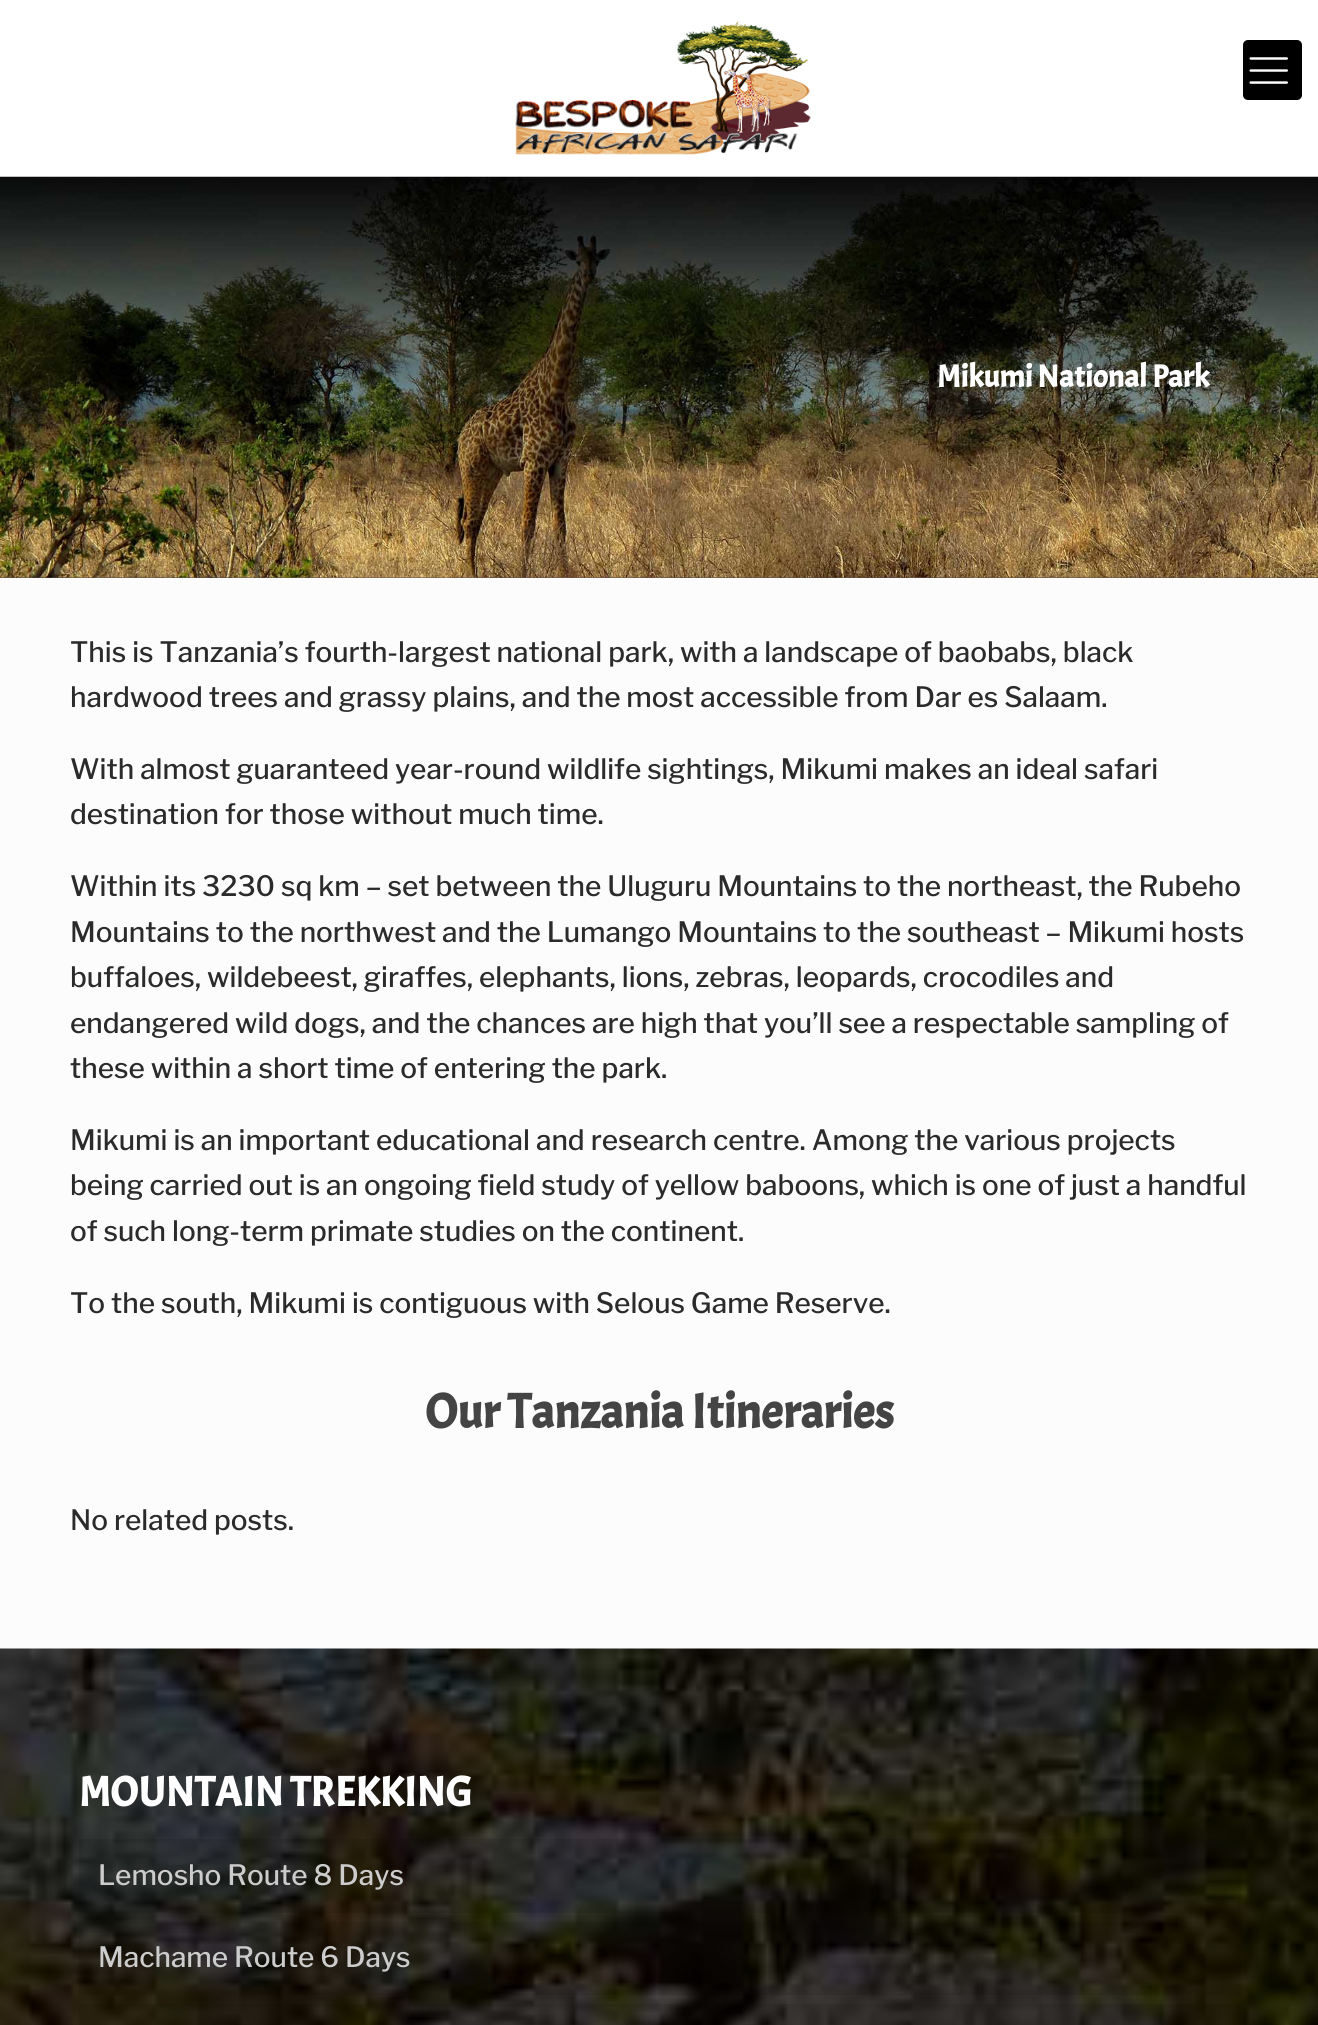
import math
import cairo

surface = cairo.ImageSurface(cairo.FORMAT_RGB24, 1318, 2025)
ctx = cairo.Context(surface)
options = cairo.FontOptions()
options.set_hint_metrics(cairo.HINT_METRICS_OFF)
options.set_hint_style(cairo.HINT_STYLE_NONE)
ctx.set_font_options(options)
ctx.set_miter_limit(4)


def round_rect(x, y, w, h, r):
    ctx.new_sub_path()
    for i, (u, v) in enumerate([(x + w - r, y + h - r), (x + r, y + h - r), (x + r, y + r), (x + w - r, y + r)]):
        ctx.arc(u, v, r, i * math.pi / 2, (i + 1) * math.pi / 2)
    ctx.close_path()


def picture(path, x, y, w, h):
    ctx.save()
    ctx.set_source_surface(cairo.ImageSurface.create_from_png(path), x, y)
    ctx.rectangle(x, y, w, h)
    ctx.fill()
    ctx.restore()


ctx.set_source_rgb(0.988, 0.988, 0.988)
ctx.paint()
picture("img1.png", 0, 577, 1318, 1)
ctx.set_source_rgb(1, 1, 1)
ctx.rectangle(0, 0, 1318, 177)
ctx.fill()
picture("img2.png", 515, 21, 296, 134)
ctx.set_source_rgb(0, 0, 0)
round_rect(1243, 40, 59, 60, 5)
ctx.fill()
picture("img3.png", 1249, 57, 39, 27)
ctx.set_source_rgba(0.22, 0.169, 0.133, 0.7)
ctx.rectangle(0, 577, 1318, 1)
ctx.fill()
picture("img4.png", 0, 176, 1318, 402)
ctx.select_font_face("Acme", cairo.FONT_SLANT_NORMAL, cairo.FONT_WEIGHT_BOLD)
ctx.set_font_size(31.5)
ctx.set_source_rgb(1, 1, 1)
ctx.move_to(937, 387)
ctx.show_text("Mikumi National Park")
ctx.select_font_face("Libre Franklin Medium")
ctx.set_font_size(28)
ctx.set_source_rgb(0.169, 0.169, 0.169)
ctx.move_to(70, 662)
ctx.show_text("This is Tanzania’s fourth-largest national park, with a landscape of baobabs, black")
ctx.move_to(70, 707)
ctx.show_text("hardwood trees and grassy plains, and the most accessible from Dar es Salaam.")
ctx.move_to(70, 779)
ctx.show_text("With almost guaranteed year-round wildlife sightings, Mikumi makes an ideal safari")
ctx.move_to(70, 824)
ctx.show_text("destination for those without much time.")
ctx.move_to(70, 896)
ctx.show_text("Within its 3230 sq km – set between the Uluguru Mountains to the northeast, the Rubeho")
ctx.move_to(70, 942)
ctx.show_text("Mountains to the northwest and the Lumango Mountains to the southeast – Mikumi hosts")
ctx.move_to(70, 987)
ctx.show_text("buffaloes, wildebeest, giraffes, elephants, lions, zebras, leopards, crocodiles and")
ctx.move_to(70, 1033)
ctx.show_text("endangered wild dogs, and the chances are high that you’ll see a respectable sampling of")
ctx.move_to(70, 1078)
ctx.show_text("these within a short time of entering the park.")
ctx.move_to(70, 1150)
ctx.show_text("Mikumi is an important educational and research centre. Among the various projects")
ctx.move_to(70, 1195)
ctx.show_text("being carried out is an ongoing field study of yellow baboons, which is one of just a handful")
ctx.move_to(70, 1241)
ctx.show_text("of such long-term primate studies on the continent.")
ctx.move_to(70, 1313)
ctx.show_text("To the south, Mikumi is contiguous with Selous Game Reserve.")
ctx.select_font_face("Acme", cairo.FONT_SLANT_NORMAL, cairo.FONT_WEIGHT_BOLD)
ctx.set_font_size(49)
ctx.set_source_rgb(0.267, 0.267, 0.267)
ctx.move_to(425, 1428)
ctx.show_text("Our Tanzania Itineraries")
ctx.select_font_face("Libre Franklin Medium")
ctx.set_font_size(28)
ctx.set_source_rgb(0.169, 0.169, 0.169)
ctx.move_to(70, 1530)
ctx.show_text("No related posts.")
picture("img5.png", 0, 1648, 1318, 377)
ctx.select_font_face("Acme", cairo.FONT_SLANT_NORMAL, cairo.FONT_WEIGHT_BOLD)
ctx.set_font_size(42)
ctx.set_source_rgb(1, 1, 1)
ctx.move_to(79, 1806)
ctx.show_text("MOUNTAIN TREKKING")
ctx.set_source_rgba(0, 0, 0, 0.1)
ctx.rectangle(79, 1839, 1162, 74)
ctx.fill()
ctx.select_font_face("Libre Franklin Medium")
ctx.set_font_size(28)
ctx.set_source_rgb(0.8, 0.8, 0.8)
ctx.move_to(98, 1885)
ctx.show_text("Lemosho Route 8 Days")
ctx.set_source_rgba(0, 0, 0, 0.1)
ctx.rectangle(79, 1922, 1162, 73)
ctx.fill()
ctx.set_source_rgb(0.8, 0.8, 0.8)
ctx.move_to(98, 1967)
ctx.show_text("Machame Route 6 Days")
ctx.set_source_rgba(0, 0, 0, 0.1)
ctx.rectangle(79, 2004, 1162, 21)
ctx.fill()
surface.write_to_png("page.png")
